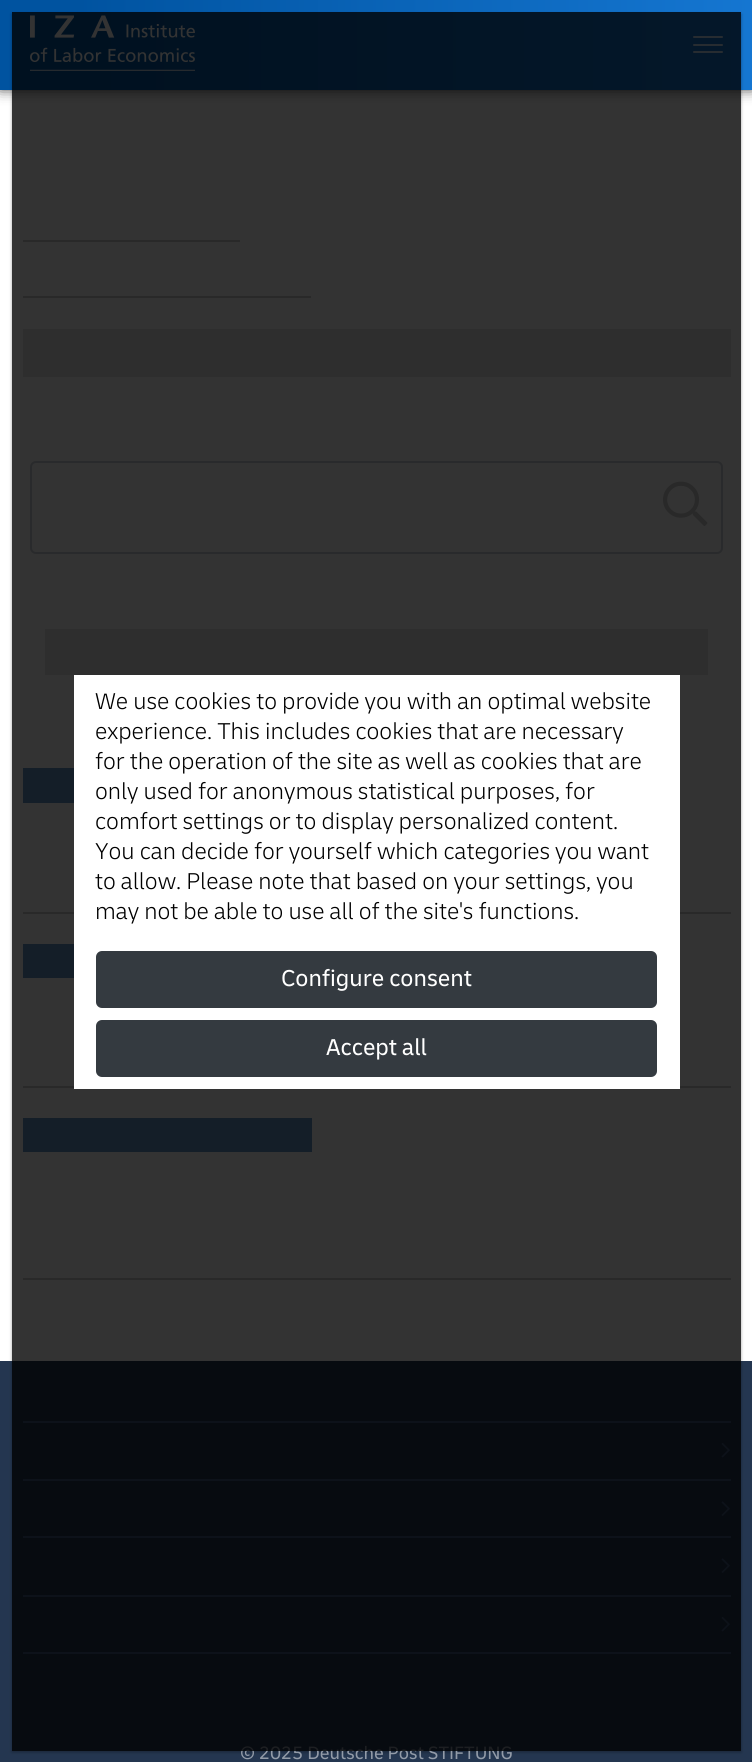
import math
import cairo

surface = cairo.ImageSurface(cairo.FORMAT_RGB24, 752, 1762)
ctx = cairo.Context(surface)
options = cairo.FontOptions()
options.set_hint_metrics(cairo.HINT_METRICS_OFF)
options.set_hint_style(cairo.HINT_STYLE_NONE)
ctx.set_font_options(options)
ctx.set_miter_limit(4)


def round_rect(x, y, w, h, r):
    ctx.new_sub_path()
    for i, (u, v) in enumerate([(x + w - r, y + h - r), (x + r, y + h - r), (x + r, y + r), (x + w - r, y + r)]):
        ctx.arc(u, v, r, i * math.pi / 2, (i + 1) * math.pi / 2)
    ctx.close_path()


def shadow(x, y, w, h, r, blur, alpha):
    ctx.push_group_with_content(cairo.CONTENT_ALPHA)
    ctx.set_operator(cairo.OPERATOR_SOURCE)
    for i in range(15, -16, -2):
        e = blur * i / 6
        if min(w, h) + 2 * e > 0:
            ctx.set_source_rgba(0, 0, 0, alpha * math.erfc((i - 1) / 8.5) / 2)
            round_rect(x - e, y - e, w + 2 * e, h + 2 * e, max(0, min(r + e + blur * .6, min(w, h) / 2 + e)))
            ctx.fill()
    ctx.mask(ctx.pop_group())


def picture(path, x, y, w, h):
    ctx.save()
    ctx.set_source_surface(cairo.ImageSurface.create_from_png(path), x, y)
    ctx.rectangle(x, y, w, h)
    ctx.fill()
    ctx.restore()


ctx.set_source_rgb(1, 1, 1)
ctx.paint()
ctx.set_source_rgb(0, 0, 0)
shadow(0, -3, 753, 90, 0, 7.5, 1)
gradient = cairo.LinearGradient(0, 45, 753, 45)
gradient.add_color_stop_rgba(0.1, 0, 0.325, 0.627, 1)
gradient.add_color_stop_rgba(1, 0.082, 0.463, 0.82, 1)
ctx.set_source(gradient)
ctx.rectangle(0, 0, 752, 90)
ctx.fill()
picture("img1.png", 30, 15, 165, 56)
ctx.set_source_rgb(0.769, 0.863, 0.953)
round_rect(693, 44, 30, 2, 1)
ctx.fill()
round_rect(693, 36, 30, 2, 1)
ctx.fill()
round_rect(693, 51, 30, 2, 1)
ctx.fill()
ctx.set_source_rgb(0.8, 0.8, 0.8)
ctx.rectangle(23, 240, 217, 2)
ctx.fill()
ctx.rectangle(23, 296, 288, 2)
ctx.fill()
ctx.set_source_rgb(0.898, 0.898, 0.898)
ctx.rectangle(23, 329, 708, 48)
ctx.fill()
round_rect(31, 462, 691, 91, 5)
ctx.set_source_rgb(0.808, 0.831, 0.855)
ctx.stroke()
picture("img2.png", 663, 481, 45, 45)
ctx.set_source_rgb(0.898, 0.898, 0.898)
ctx.rectangle(45, 629, 663, 46)
ctx.fill()
ctx.set_source_rgb(0.8, 0.8, 0.8)
ctx.rectangle(23, 912, 708, 2)
ctx.fill()
ctx.set_source_rgb(0.4, 0.596, 0.776)
ctx.rectangle(23, 768, 51, 35)
ctx.fill()
ctx.set_source_rgb(0.8, 0.8, 0.8)
ctx.rectangle(23, 1086, 708, 2)
ctx.fill()
ctx.set_source_rgb(0.4, 0.596, 0.776)
ctx.rectangle(23, 944, 51, 34)
ctx.fill()
ctx.set_source_rgb(0.8, 0.8, 0.8)
ctx.rectangle(23, 1278, 708, 2)
ctx.fill()
ctx.set_source_rgb(0.4, 0.596, 0.776)
ctx.rectangle(23, 1118, 289, 34)
ctx.fill()
ctx.set_source_rgb(0.141, 0.212, 0.314)
ctx.rectangle(0, 1361, 752, 401)
ctx.fill()
ctx.set_source_rgb(0.255, 0.357, 0.502)
ctx.rectangle(23, 1421, 708, 2)
ctx.fill()
ctx.rectangle(23, 1479, 708, 2)
ctx.fill()
picture("img3.png", 721, 1443, 9, 15)
ctx.rectangle(23, 1536, 708, 2)
ctx.fill()
picture("img4.png", 721, 1501, 9, 15)
ctx.rectangle(23, 1595, 708, 2)
ctx.fill()
picture("img4.png", 721, 1558, 9, 15)
ctx.rectangle(23, 1652, 708, 2)
ctx.fill()
picture("img3.png", 721, 1617, 9, 15)
ctx.save()
ctx.set_fill_rule(cairo.FILL_RULE_EVEN_ODD)
ctx.new_path()
ctx.move_to(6, 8)
ctx.line_to(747, 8)
ctx.line_to(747, 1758)
ctx.line_to(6, 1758)
ctx.close_path()
ctx.move_to(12, 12)
ctx.line_to(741, 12)
ctx.line_to(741, 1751)
ctx.line_to(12, 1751)
ctx.close_path()
ctx.clip()
ctx.set_source_rgb(0, 0, 0)
shadow(12, 14, 729, 1738, 0, 1.5, 0.24)
ctx.restore()
ctx.save()
ctx.set_fill_rule(cairo.FILL_RULE_EVEN_ODD)
ctx.new_path()
ctx.move_to(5, 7)
ctx.line_to(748, 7)
ctx.line_to(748, 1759)
ctx.line_to(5, 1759)
ctx.close_path()
ctx.move_to(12, 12)
ctx.line_to(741, 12)
ctx.line_to(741, 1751)
ctx.line_to(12, 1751)
ctx.close_path()
ctx.clip()
ctx.set_source_rgb(0, 0, 0)
shadow(12, 14, 729, 1738, 0, 2, 0.12)
ctx.restore()
ctx.select_font_face("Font")
ctx.set_font_size(18.75)
ctx.set_source_rgb(0.573, 0.608, 0.659)
ctx.move_to(240, 1759)
ctx.show_text("© 2025 Deutsche Post STIFTUNG")
ctx.set_source_rgba(0, 0, 0, 0.8)
ctx.rectangle(12, 12, 729, 1739)
ctx.fill()
ctx.set_source_rgb(1, 1, 1)
ctx.rectangle(74, 675, 606, 414)
ctx.fill()
ctx.select_font_face("Font Light")
ctx.set_font_size(24)
ctx.set_source_rgb(0, 0, 0)
ctx.move_to(95, 709)
ctx.show_text("We use cookies to provide you with an optimal website")
ctx.move_to(95, 739)
ctx.show_text("experience. This includes cookies that are necessary")
ctx.move_to(95, 769)
ctx.show_text("for the operation of the site as well as cookies that are")
ctx.move_to(95, 799)
ctx.show_text("only used for anonymous statistical purposes, for")
ctx.move_to(95, 829)
ctx.show_text("comfort settings or to display personalized content.")
ctx.move_to(95, 859)
ctx.show_text("You can decide for yourself which categories you want")
ctx.move_to(95, 889)
ctx.show_text("to allow. Please note that based on your settings, you")
ctx.move_to(95, 919)
ctx.show_text("may not be able to use all of the site's functions.")
ctx.set_source_rgb(0.204, 0.227, 0.251)
round_rect(97, 952, 559, 55, 5)
ctx.fill_preserve()
ctx.stroke()
ctx.select_font_face("Font")
ctx.set_source_rgb(1, 1, 1)
ctx.move_to(281, 986)
ctx.show_text("Configure consent")
ctx.set_source_rgb(0.204, 0.227, 0.251)
round_rect(97, 1021, 559, 55, 5)
ctx.fill_preserve()
ctx.stroke()
ctx.set_source_rgb(1, 1, 1)
ctx.move_to(326, 1055)
ctx.show_text("Accept all")
surface.write_to_png("page.png")
